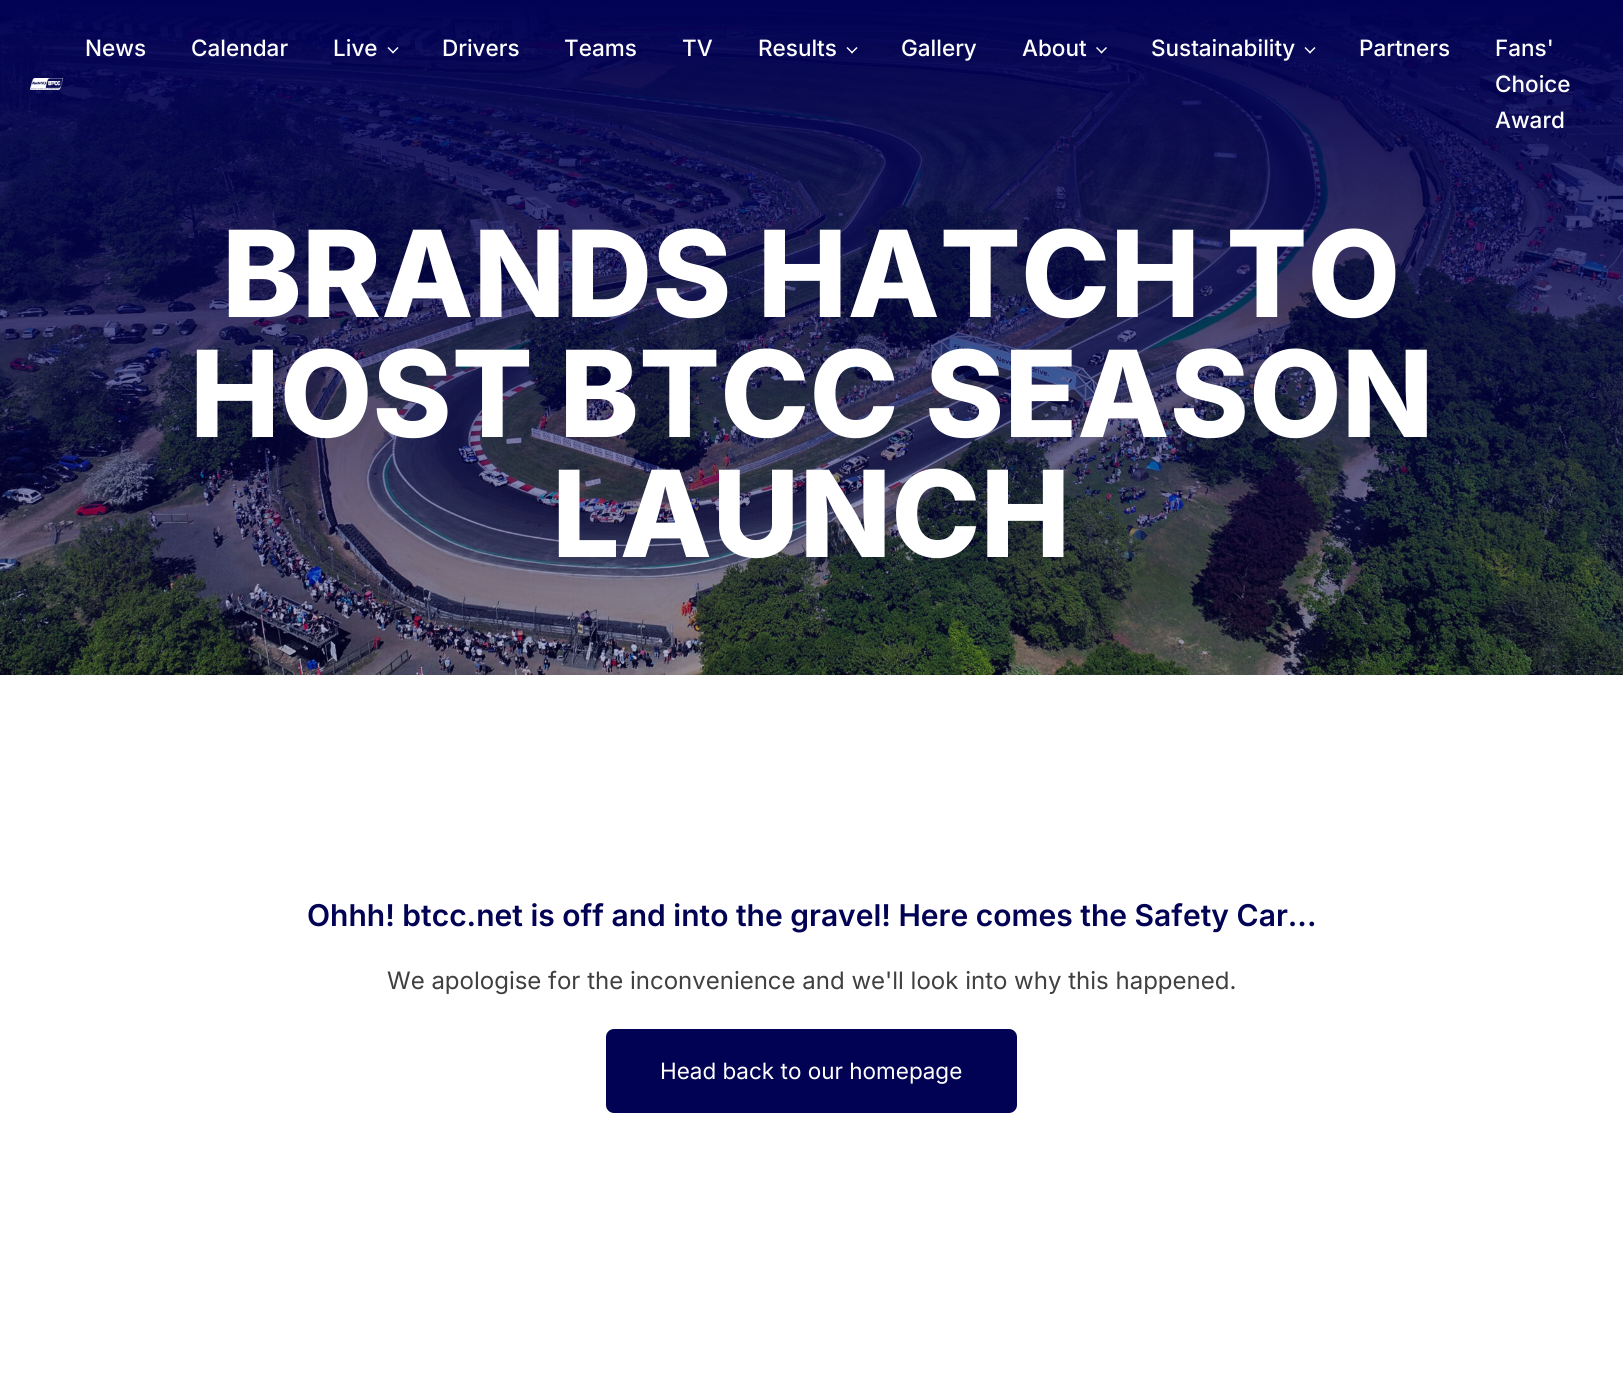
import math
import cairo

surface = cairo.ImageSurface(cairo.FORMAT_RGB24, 1623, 1384)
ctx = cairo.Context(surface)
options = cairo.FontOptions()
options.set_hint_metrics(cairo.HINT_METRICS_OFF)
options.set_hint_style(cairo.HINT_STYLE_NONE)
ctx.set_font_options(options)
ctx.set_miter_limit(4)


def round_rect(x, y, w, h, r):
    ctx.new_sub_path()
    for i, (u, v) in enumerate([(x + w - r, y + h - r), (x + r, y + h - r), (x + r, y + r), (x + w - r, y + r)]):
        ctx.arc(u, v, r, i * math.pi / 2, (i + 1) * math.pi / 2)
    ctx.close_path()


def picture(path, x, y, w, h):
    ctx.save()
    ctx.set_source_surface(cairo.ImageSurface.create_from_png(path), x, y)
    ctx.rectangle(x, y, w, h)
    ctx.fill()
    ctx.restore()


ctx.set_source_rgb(1, 1, 1)
ctx.paint()
picture("img2.png", 0, 0, 1623, 675)
picture("img1.png", 30, 78, 33, 12)
ctx.select_font_face("Inter Medium")
ctx.set_font_size(22.5)
ctx.set_source_rgb(1, 1, 1)
ctx.move_to(85, 56)
ctx.show_text("News")
ctx.move_to(191, 56)
ctx.show_text("Calendar")
ctx.move_to(333, 56)
ctx.show_text("Live")
ctx.new_path()
ctx.move_to(398.5, 48)
ctx.line_to(393, 53.5)
ctx.line_to(392, 52.5)
ctx.line_to(397.5, 47)
ctx.close_path()
ctx.fill()
ctx.new_path()
ctx.move_to(394, 52.5)
ctx.line_to(393, 53.5)
ctx.line_to(387.5, 48)
ctx.line_to(388.5, 47)
ctx.close_path()
ctx.fill()
ctx.move_to(442, 56)
ctx.show_text("Drivers")
ctx.move_to(564, 56)
ctx.show_text("Teams")
ctx.move_to(682, 56)
ctx.show_text("TV")
ctx.move_to(758, 56)
ctx.show_text("Results")
ctx.new_path()
ctx.move_to(857.5, 48)
ctx.line_to(852, 53.5)
ctx.line_to(851, 52.5)
ctx.line_to(856.5, 47)
ctx.close_path()
ctx.fill()
ctx.new_path()
ctx.move_to(853, 52.5)
ctx.line_to(852, 53.5)
ctx.line_to(846.5, 48)
ctx.line_to(847.5, 47)
ctx.close_path()
ctx.fill()
ctx.move_to(901, 56)
ctx.show_text("Gallery")
ctx.move_to(1022, 56)
ctx.show_text("About")
ctx.new_path()
ctx.move_to(1107, 48)
ctx.line_to(1101.5, 53.5)
ctx.line_to(1100.5, 52.5)
ctx.line_to(1106, 47)
ctx.close_path()
ctx.fill()
ctx.new_path()
ctx.move_to(1102.5, 52.5)
ctx.line_to(1101.5, 53.5)
ctx.line_to(1096, 48)
ctx.line_to(1097, 47)
ctx.close_path()
ctx.fill()
ctx.move_to(1151, 56)
ctx.show_text("Sustainability")
ctx.new_path()
ctx.move_to(1315.5, 48)
ctx.line_to(1310, 53.5)
ctx.line_to(1309, 52.5)
ctx.line_to(1314.5, 47)
ctx.close_path()
ctx.fill()
ctx.new_path()
ctx.move_to(1311, 52.5)
ctx.line_to(1310, 53.5)
ctx.line_to(1304.5, 48)
ctx.line_to(1305.5, 47)
ctx.close_path()
ctx.fill()
ctx.move_to(1359, 56)
ctx.show_text("Partners")
ctx.move_to(1495, 56)
ctx.show_text("Fans'")
ctx.move_to(1495, 92)
ctx.show_text("Choice")
ctx.move_to(1495, 128)
ctx.show_text("Award")
ctx.select_font_face("Inter ExtraBold")
ctx.set_font_size(120)
ctx.move_to(222, 317)
ctx.show_text("BRANDS HATCH TO")
ctx.move_to(190, 437)
ctx.show_text("HOST BTCC SEASON")
ctx.move_to(552, 557)
ctx.show_text("LAUNCH")
ctx.select_font_face("Inter SemiBold")
ctx.set_font_size(30)
ctx.set_source_rgb(0.008, 0.008, 0.333)
ctx.move_to(307, 926)
ctx.show_text("Ohhh! btcc.net is off and into the gravel! Here comes the Safety Car...")
ctx.select_font_face("Inter")
ctx.set_font_size(24)
ctx.set_source_rgb(0.251, 0.251, 0.251)
ctx.move_to(387, 989)
ctx.show_text("We apologise for the inconvenience and we'll look into why this happened.")
ctx.set_source_rgb(0.008, 0.008, 0.333)
round_rect(606, 1029, 411, 84, 8)
ctx.fill()
ctx.set_font_size(22.5)
ctx.set_source_rgb(1, 1, 1)
ctx.move_to(660, 1079)
ctx.show_text("Head back to our homepage")
surface.write_to_png("page.png")
